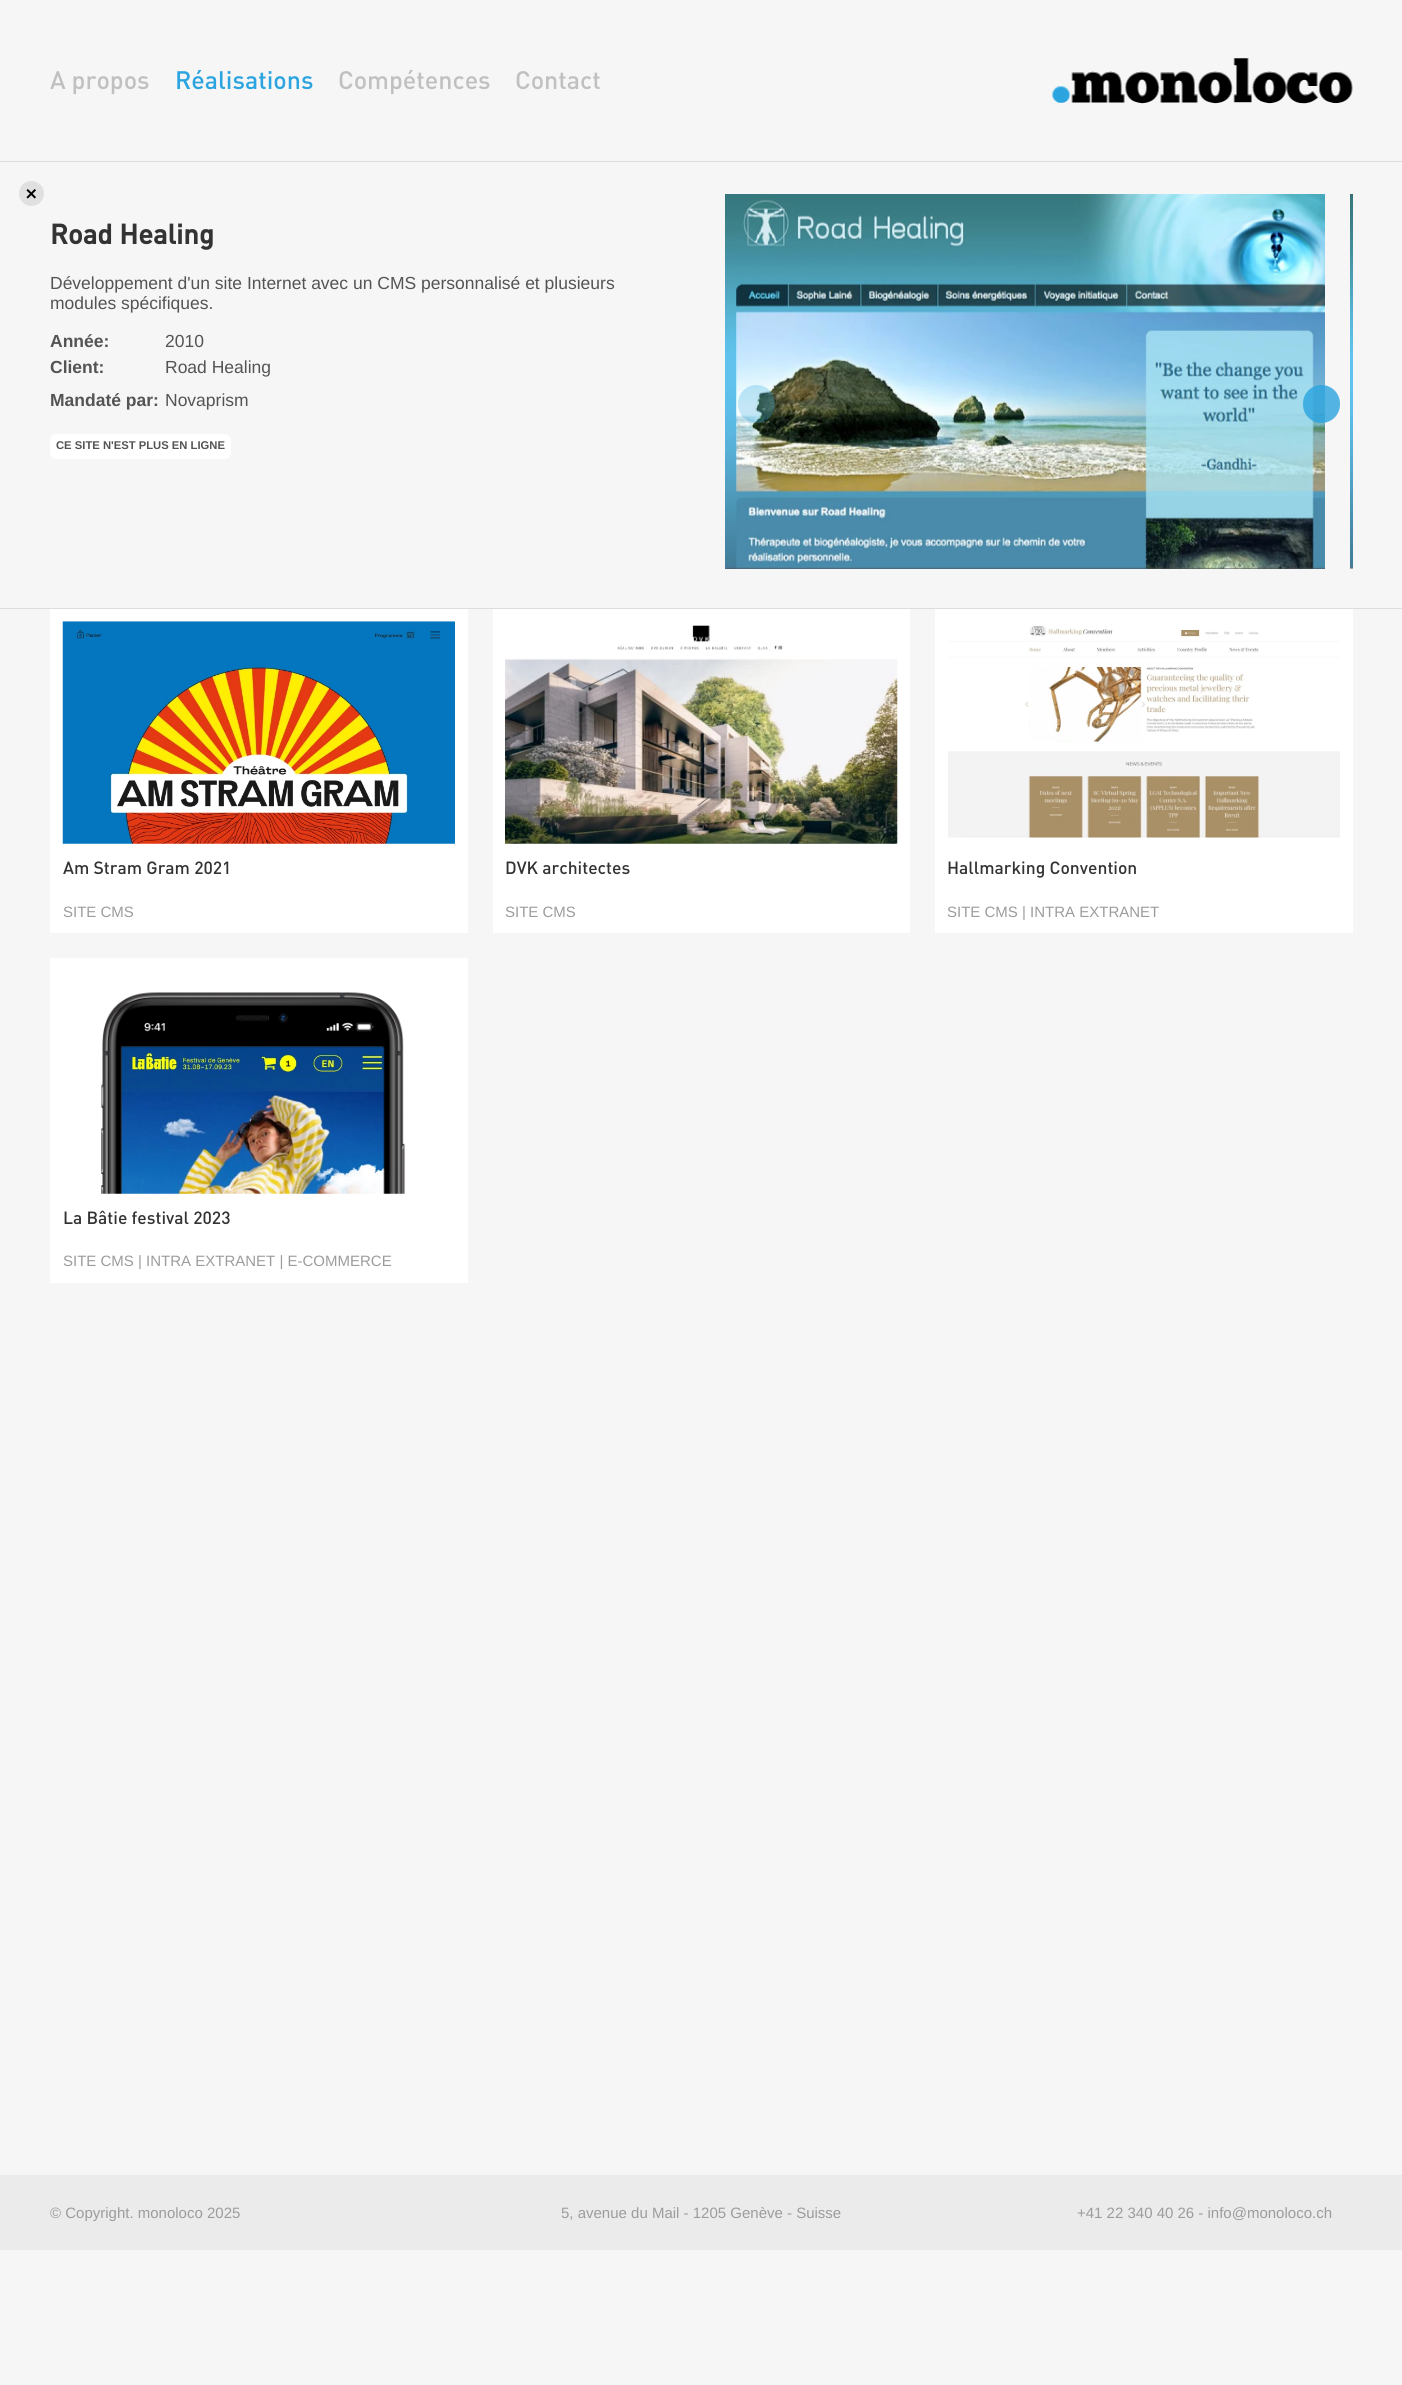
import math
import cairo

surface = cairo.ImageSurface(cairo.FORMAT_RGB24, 1402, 2385)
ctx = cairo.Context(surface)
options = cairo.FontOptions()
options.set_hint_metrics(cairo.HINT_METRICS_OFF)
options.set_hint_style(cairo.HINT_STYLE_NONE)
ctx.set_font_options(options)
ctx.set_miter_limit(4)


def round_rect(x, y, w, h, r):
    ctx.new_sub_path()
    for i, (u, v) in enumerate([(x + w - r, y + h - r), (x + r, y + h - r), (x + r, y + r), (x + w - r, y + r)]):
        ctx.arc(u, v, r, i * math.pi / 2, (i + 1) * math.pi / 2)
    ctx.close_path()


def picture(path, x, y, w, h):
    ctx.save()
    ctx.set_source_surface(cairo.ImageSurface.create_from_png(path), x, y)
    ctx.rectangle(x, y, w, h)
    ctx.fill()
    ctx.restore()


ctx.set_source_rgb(0.961, 0.961, 0.961)
ctx.paint()
ctx.set_source_rgb(0.867, 0.867, 0.867)
ctx.rectangle(0, 161, 1402, 1)
ctx.fill()
ctx.select_font_face("DIN Medium")
ctx.set_font_size(25)
ctx.set_source_rgb(0.753, 0.753, 0.753)
ctx.move_to(50, 89)
ctx.show_text("A propos")
ctx.set_source_rgb(0.169, 0.643, 0.875)
ctx.move_to(175, 89)
ctx.show_text("Réalisations")
ctx.set_source_rgb(0.753, 0.753, 0.753)
ctx.move_to(338, 89)
ctx.show_text("Compétences")
ctx.move_to(515, 89)
ctx.show_text("Contact")
picture("img1.png", 1052, 58, 301, 46)
ctx.set_source_rgb(0.878, 0.878, 0.878)
ctx.arc(31.5, 193.5, 12.5, 0, 2 * math.pi)
ctx.fill()
picture("img2.png", 26, 189, 10, 10)
ctx.select_font_face("DIN", cairo.FONT_SLANT_NORMAL, cairo.FONT_WEIGHT_BOLD)
ctx.set_font_size(27.5)
ctx.set_source_rgb(0.2, 0.2, 0.2)
ctx.move_to(50, 244)
ctx.show_text("Road Healing")
ctx.select_font_face("Liberation Sans")
ctx.set_font_size(17.5)
ctx.set_source_rgb(0.329, 0.329, 0.329)
ctx.move_to(50, 289)
ctx.show_text("Développement d'un site Internet avec un CMS personnalisé et plusieurs")
ctx.move_to(50, 309)
ctx.show_text("modules spécifiques.")
ctx.select_font_face("Liberation Sans", cairo.FONT_SLANT_NORMAL, cairo.FONT_WEIGHT_BOLD)
ctx.move_to(50, 347)
ctx.show_text("Année:")
ctx.select_font_face("Liberation Sans")
ctx.move_to(165, 347)
ctx.show_text("2010")
ctx.select_font_face("Liberation Sans", cairo.FONT_SLANT_NORMAL, cairo.FONT_WEIGHT_BOLD)
ctx.move_to(50, 373)
ctx.show_text("Client:")
ctx.select_font_face("Liberation Sans")
ctx.move_to(165, 373)
ctx.show_text("Road Healing")
ctx.select_font_face("Liberation Sans", cairo.FONT_SLANT_NORMAL, cairo.FONT_WEIGHT_BOLD)
ctx.move_to(50, 406)
ctx.show_text("Mandaté par:")
ctx.select_font_face("Liberation Sans")
ctx.move_to(165, 406)
ctx.show_text("Novaprism")
ctx.set_source_rgb(1, 1, 1)
round_rect(50, 434, 181, 25, 6)
ctx.fill()
ctx.select_font_face("Liberation Sans", cairo.FONT_SLANT_NORMAL, cairo.FONT_WEIGHT_BOLD)
ctx.set_font_size(11.25)
ctx.set_source_rgb(0.329, 0.329, 0.329)
ctx.move_to(56, 449)
ctx.show_text("CE SITE N'EST PLUS EN LIGNE")
picture("img3.png", 725, 194, 600, 375)
picture("img4.png", 1350, 194, 3, 375)
ctx.set_source_rgba(0.169, 0.643, 0.875, 0.28)
round_rect(738, 385, 37, 38, 18.5)
ctx.fill()
ctx.set_source_rgba(0.169, 0.643, 0.875, 0.8)
round_rect(1303, 385, 37, 38, 18.5)
ctx.fill()
ctx.set_source_rgb(0.867, 0.867, 0.867)
ctx.rectangle(0, 608, 1402, 1)
ctx.fill()
ctx.set_source_rgb(1, 1, 1)
ctx.rectangle(50, 609, 418, 324)
ctx.fill()
picture("img5.png", 62, 621, 393, 223)
ctx.select_font_face("DIN Medium")
ctx.set_font_size(17.5)
ctx.set_source_rgb(0.2, 0.2, 0.2)
ctx.move_to(63, 874)
ctx.show_text("Am Stram Gram 2021")
ctx.select_font_face("Liberation Sans")
ctx.set_font_size(15)
ctx.set_source_rgb(0.612, 0.612, 0.612)
ctx.move_to(63, 917)
ctx.show_text("SITE CMS")
ctx.set_source_rgb(1, 1, 1)
ctx.rectangle(493, 609, 417, 324)
ctx.fill()
picture("img6.png", 505, 625, 393, 219)
ctx.select_font_face("DIN Medium")
ctx.set_font_size(17.5)
ctx.set_source_rgb(0.2, 0.2, 0.2)
ctx.move_to(505, 874)
ctx.show_text("DVK architectes")
ctx.select_font_face("Liberation Sans")
ctx.set_font_size(15)
ctx.set_source_rgb(0.612, 0.612, 0.612)
ctx.move_to(505, 917)
ctx.show_text("SITE CMS")
ctx.set_source_rgb(1, 1, 1)
ctx.rectangle(935, 609, 418, 324)
ctx.fill()
picture("img7.png", 948, 625, 392, 213)
ctx.select_font_face("DIN Medium")
ctx.set_font_size(17.5)
ctx.set_source_rgb(0.2, 0.2, 0.2)
ctx.move_to(947, 874)
ctx.show_text("Hallmarking Convention")
ctx.select_font_face("Liberation Sans")
ctx.set_font_size(15)
ctx.set_source_rgb(0.612, 0.612, 0.612)
ctx.move_to(947, 917)
ctx.show_text("SITE CMS | INTRA EXTRANET")
ctx.set_source_rgb(1, 1, 1)
ctx.rectangle(50, 958, 418, 325)
ctx.fill()
picture("img9.png", 121, 1046, 267, 148)
picture("img8.png", 101, 992, 305, 202)
ctx.select_font_face("DIN Medium")
ctx.set_font_size(17.5)
ctx.set_source_rgb(0.2, 0.2, 0.2)
ctx.move_to(63, 1224)
ctx.show_text("La Bâtie festival 2023")
ctx.select_font_face("Liberation Sans")
ctx.set_font_size(15)
ctx.set_source_rgb(0.612, 0.612, 0.612)
ctx.move_to(63, 1266)
ctx.show_text("SITE CMS | INTRA EXTRANET | E-COMMERCE")
ctx.set_source_rgb(0.918, 0.918, 0.918)
ctx.rectangle(0, 2175, 1402, 75)
ctx.fill()
ctx.set_source_rgb(0.612, 0.612, 0.612)
ctx.move_to(50, 2218)
ctx.show_text("© Copyright. monoloco 2025")
ctx.move_to(561, 2218)
ctx.show_text("5, avenue du Mail - 1205 Genève - Suisse")
ctx.move_to(1077, 2218)
ctx.show_text("+41 22 340 40 26 - info@monoloco.ch")
surface.write_to_png("page.png")
